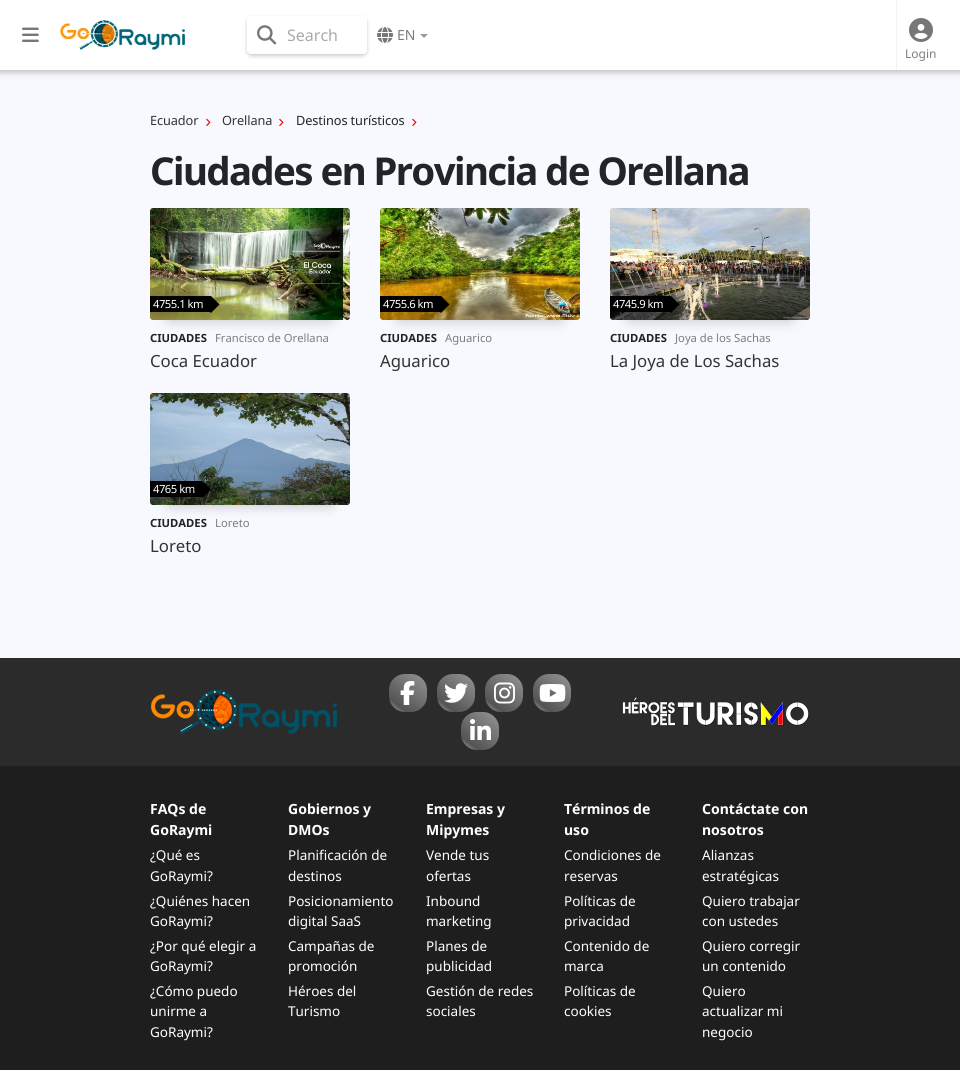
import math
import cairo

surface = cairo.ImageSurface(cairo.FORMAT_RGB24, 960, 1070)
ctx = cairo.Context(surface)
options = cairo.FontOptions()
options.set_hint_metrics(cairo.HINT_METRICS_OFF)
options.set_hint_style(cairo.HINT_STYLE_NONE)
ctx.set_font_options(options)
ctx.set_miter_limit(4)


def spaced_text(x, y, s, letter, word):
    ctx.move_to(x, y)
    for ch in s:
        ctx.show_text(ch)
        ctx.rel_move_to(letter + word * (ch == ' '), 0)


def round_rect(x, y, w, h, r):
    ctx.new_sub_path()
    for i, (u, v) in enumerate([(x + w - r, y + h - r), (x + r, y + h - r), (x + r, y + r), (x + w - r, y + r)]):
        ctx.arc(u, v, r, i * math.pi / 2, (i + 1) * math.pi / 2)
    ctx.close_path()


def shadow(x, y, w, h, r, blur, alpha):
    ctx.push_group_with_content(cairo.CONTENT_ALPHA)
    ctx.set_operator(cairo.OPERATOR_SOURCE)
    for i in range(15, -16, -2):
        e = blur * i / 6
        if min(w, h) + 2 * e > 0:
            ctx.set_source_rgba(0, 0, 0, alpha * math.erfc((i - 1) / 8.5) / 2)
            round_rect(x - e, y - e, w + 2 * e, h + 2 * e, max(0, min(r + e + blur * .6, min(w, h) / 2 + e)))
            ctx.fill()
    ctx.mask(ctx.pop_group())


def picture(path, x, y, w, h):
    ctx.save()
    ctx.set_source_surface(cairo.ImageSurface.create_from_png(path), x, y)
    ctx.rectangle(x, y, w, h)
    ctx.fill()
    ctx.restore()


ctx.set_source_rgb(0.965, 0.976, 0.996)
ctx.paint()
ctx.set_source_rgb(0, 0, 0)
shadow(0, 2, 960, 70, 0, 5, 0.12)
shadow(0, 2, 960, 70, 0, 2.5, 0.16)
ctx.set_source_rgb(1, 1, 1)
ctx.rectangle(0, 0, 960, 70)
ctx.fill()
picture("img1.png", 22, 27, 17, 15)
picture("img2.png", 60, 20, 125, 30)
ctx.save()
ctx.set_fill_rule(cairo.FILL_RULE_EVEN_ODD)
ctx.new_path()
ctx.move_to(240, 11)
ctx.line_to(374, 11)
ctx.line_to(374, 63)
ctx.line_to(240, 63)
ctx.close_path()
ctx.move_to(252, 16)
ctx.line_to(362, 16)
ctx.curve_to(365, 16, 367, 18, 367, 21)
ctx.line_to(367, 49)
ctx.curve_to(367, 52, 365, 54, 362, 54)
ctx.line_to(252, 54)
ctx.curve_to(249, 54, 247, 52, 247, 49)
ctx.line_to(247, 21)
ctx.curve_to(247, 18, 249, 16, 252, 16)
ctx.close_path()
ctx.clip()
ctx.set_source_rgb(0, 0, 0)
shadow(247, 18, 120, 38, 5, 2, 0.2)
ctx.restore()
ctx.set_source_rgba(1, 1, 1, 0.9)
round_rect(247, 16, 120, 38, 5)
ctx.fill()
picture("img3.png", 257, 25, 20, 20)
ctx.select_font_face("Noto Sans")
ctx.set_font_size(16)
ctx.set_source_rgb(0.667, 0.667, 0.667)
ctx.move_to(287, 41)
ctx.show_text("Search")
picture("img4.png", 377, 27, 16, 16)
ctx.set_font_size(14)
ctx.set_source_rgb(0.482, 0.49, 0.498)
ctx.move_to(397, 40)
ctx.show_text("EN")
ctx.set_source_rgb(0.6, 0.6, 0.6)
ctx.new_path()
ctx.move_to(420, 34)
ctx.line_to(428, 34)
ctx.line_to(424, 38)
ctx.close_path()
ctx.fill()
ctx.set_source_rgb(0.949, 0.949, 0.949)
ctx.rectangle(896, 0, 1, 70)
ctx.fill()
picture("img5.png", 909, 18, 24, 24)
ctx.set_font_size(12)
ctx.set_source_rgb(0.482, 0.49, 0.498)
ctx.move_to(905, 58)
ctx.show_text("Login")
ctx.set_font_size(12.75)
ctx.set_source_rgb(0.2, 0.2, 0.2)
spaced_text(150, 125, "Ecuador", -0.1, 0)
picture("img6.png", 206, 118, 5, 8)
spaced_text(222, 125, "Orellana", -0.1, 0)
picture("img6.png", 279, 118, 5, 8)
ctx.set_source_rgb(0.137, 0.137, 0.137)
spaced_text(296, 125, "Destinos turísticos", -0.1, 0)
picture("img6.png", 412, 118, 5, 8)
ctx.select_font_face("Noto Sans", cairo.FONT_SLANT_NORMAL, cairo.FONT_WEIGHT_BOLD)
ctx.set_font_size(38.4)
ctx.set_source_rgb(0.129, 0.145, 0.161)
spaced_text(150, 185, "Ciudades en Provincia de Orellana", -1.6, 0)
ctx.set_source_rgb(0, 0, 0)
shadow(170, 246, 160, 72, 0, 7.5, 0.3)
picture("img7.png", 150, 208, 200, 112)
picture("img8.png", 150, 208, 200, 112)
ctx.set_source_rgb(0, 0, 0)
ctx.rectangle(150, 296, 61, 16)
ctx.fill()
ctx.select_font_face("Noto Sans")
ctx.set_font_size(11.25)
ctx.set_source_rgb(1, 1, 1)
spaced_text(153, 308, "4755.1 km", -0.5, 0)
ctx.set_source_rgb(0, 0, 0)
ctx.new_path()
ctx.move_to(211, 296)
ctx.line_to(219.5, 304.5)
ctx.line_to(211, 313)
ctx.line_to(202.5, 304.5)
ctx.close_path()
ctx.fill()
ctx.select_font_face("Noto Sans", cairo.FONT_SLANT_NORMAL, cairo.FONT_WEIGHT_BOLD)
ctx.set_source_rgb(0.137, 0.137, 0.137)
ctx.move_to(150, 342)
ctx.show_text("CIUDADES")
ctx.select_font_face("Noto Sans")
ctx.set_source_rgb(0.482, 0.49, 0.498)
ctx.move_to(215, 342)
ctx.show_text("Francisco de Orellana")
ctx.set_font_size(16.75)
ctx.set_source_rgb(0.2, 0.2, 0.2)
ctx.move_to(150, 367)
ctx.show_text("Coca Ecuador")
ctx.set_source_rgb(0, 0, 0)
shadow(400, 246, 160, 72, 0, 7.5, 0.3)
picture("img9.png", 380, 208, 200, 112)
picture("img10.png", 380, 208, 200, 112)
ctx.set_source_rgb(0, 0, 0)
ctx.rectangle(380, 296, 61, 16)
ctx.fill()
ctx.set_font_size(11.25)
ctx.set_source_rgb(1, 1, 1)
spaced_text(383, 308, "4755.6 km", -0.5, 0)
ctx.set_source_rgb(0, 0, 0)
ctx.new_path()
ctx.move_to(441, 296)
ctx.line_to(449.5, 304.5)
ctx.line_to(441, 313)
ctx.line_to(432.5, 304.5)
ctx.close_path()
ctx.fill()
ctx.select_font_face("Noto Sans", cairo.FONT_SLANT_NORMAL, cairo.FONT_WEIGHT_BOLD)
ctx.set_source_rgb(0.137, 0.137, 0.137)
ctx.move_to(380, 342)
ctx.show_text("CIUDADES")
ctx.select_font_face("Noto Sans")
ctx.set_source_rgb(0.482, 0.49, 0.498)
ctx.move_to(445, 342)
ctx.show_text("Aguarico")
ctx.set_font_size(16.75)
ctx.set_source_rgb(0.2, 0.2, 0.2)
ctx.move_to(380, 367)
ctx.show_text("Aguarico")
ctx.set_source_rgb(0, 0, 0)
shadow(630, 246, 160, 72, 0, 7.5, 0.3)
picture("img11.png", 610, 208, 200, 112)
picture("img12.png", 610, 208, 200, 112)
ctx.set_source_rgb(0, 0, 0)
ctx.rectangle(610, 296, 61, 16)
ctx.fill()
ctx.set_font_size(11.25)
ctx.set_source_rgb(1, 1, 1)
spaced_text(613, 308, "4745.9 km", -0.5, 0)
ctx.set_source_rgb(0, 0, 0)
ctx.new_path()
ctx.move_to(671, 296)
ctx.line_to(679.5, 304.5)
ctx.line_to(671, 313)
ctx.line_to(662.5, 304.5)
ctx.close_path()
ctx.fill()
ctx.select_font_face("Noto Sans", cairo.FONT_SLANT_NORMAL, cairo.FONT_WEIGHT_BOLD)
ctx.set_source_rgb(0.137, 0.137, 0.137)
ctx.move_to(610, 342)
ctx.show_text("CIUDADES")
ctx.select_font_face("Noto Sans")
ctx.set_source_rgb(0.482, 0.49, 0.498)
ctx.move_to(675, 342)
ctx.show_text("Joya de los Sachas")
ctx.set_font_size(16.75)
ctx.set_source_rgb(0.2, 0.2, 0.2)
ctx.move_to(610, 367)
ctx.show_text("La Joya de Los Sachas")
ctx.set_source_rgb(0, 0, 0)
shadow(170, 431, 160, 72, 0, 7.5, 0.3)
picture("img13.png", 150, 393, 200, 112)
picture("img14.png", 150, 393, 200, 112)
ctx.set_source_rgb(0, 0, 0)
ctx.rectangle(150, 481, 52, 16)
ctx.fill()
ctx.set_font_size(11.25)
ctx.set_source_rgb(1, 1, 1)
spaced_text(153, 493, "4765 km", -0.5, 0)
ctx.set_source_rgb(0, 0, 0)
ctx.new_path()
ctx.move_to(202.5, 481)
ctx.line_to(211, 489.5)
ctx.line_to(202.5, 498)
ctx.line_to(194, 489.5)
ctx.close_path()
ctx.fill()
ctx.select_font_face("Noto Sans", cairo.FONT_SLANT_NORMAL, cairo.FONT_WEIGHT_BOLD)
ctx.set_source_rgb(0.137, 0.137, 0.137)
ctx.move_to(150, 527)
ctx.show_text("CIUDADES")
ctx.select_font_face("Noto Sans")
ctx.set_source_rgb(0.482, 0.49, 0.498)
ctx.move_to(215, 527)
ctx.show_text("Loreto")
ctx.set_font_size(16.75)
ctx.set_source_rgb(0.2, 0.2, 0.2)
ctx.move_to(150, 552)
ctx.show_text("Loreto")
ctx.set_source_rgb(0.169, 0.169, 0.169)
ctx.rectangle(0, 658, 960, 108)
ctx.fill()
picture("img15.png", 151, 690, 186, 44)
gradient = cairo.LinearGradient(424, 672, 392, 714)
gradient.add_color_stop_rgba(0, 0.584, 0.584, 0.584, 1)
gradient.add_color_stop_rgba(0.8, 0.329, 0.329, 0.329, 1)
gradient.add_color_stop_rgba(1, 0.71, 0.71, 0.71, 1)
ctx.set_source(gradient)
round_rect(389, 674, 38, 38, 16)
ctx.fill()
picture("img16.png", 400, 681, 15, 24)
gradient = cairo.LinearGradient(472, 672, 440, 714)
gradient.add_color_stop_rgba(0, 0.584, 0.584, 0.584, 1)
gradient.add_color_stop_rgba(0.8, 0.329, 0.329, 0.329, 1)
gradient.add_color_stop_rgba(1, 0.71, 0.71, 0.71, 1)
ctx.set_source(gradient)
round_rect(437, 674, 38, 38, 16)
ctx.fill()
picture("img17.png", 444, 683, 24, 20)
gradient = cairo.LinearGradient(520, 672, 488, 714)
gradient.add_color_stop_rgba(0, 0.584, 0.584, 0.584, 1)
gradient.add_color_stop_rgba(0.8, 0.329, 0.329, 0.329, 1)
gradient.add_color_stop_rgba(1, 0.71, 0.71, 0.71, 1)
ctx.set_source(gradient)
round_rect(485, 674, 38, 38, 16)
ctx.fill()
picture("img18.png", 494, 682, 21, 22)
gradient = cairo.LinearGradient(568, 672, 536, 714)
gradient.add_color_stop_rgba(0, 0.584, 0.584, 0.584, 1)
gradient.add_color_stop_rgba(0.8, 0.329, 0.329, 0.329, 1)
gradient.add_color_stop_rgba(1, 0.71, 0.71, 0.71, 1)
ctx.set_source(gradient)
round_rect(533, 674, 38, 38, 16)
ctx.fill()
picture("img19.png", 539, 684, 27, 18)
gradient = cairo.LinearGradient(496, 710, 464, 752)
gradient.add_color_stop_rgba(0, 0.584, 0.584, 0.584, 1)
gradient.add_color_stop_rgba(0.8, 0.329, 0.329, 0.329, 1)
gradient.add_color_stop_rgba(1, 0.71, 0.71, 0.71, 1)
ctx.set_source(gradient)
round_rect(461, 712, 38, 38, 16)
ctx.fill()
picture("img20.png", 470, 719, 21, 21)
picture("img21.png", 622, 697, 187, 29)
ctx.set_source_rgb(0.118, 0.118, 0.118)
ctx.rectangle(0, 766, 960, 304)
ctx.fill()
ctx.select_font_face("Noto Sans", cairo.FONT_SLANT_NORMAL, cairo.FONT_WEIGHT_BOLD)
ctx.set_font_size(14)
ctx.set_source_rgb(1, 1, 1)
ctx.move_to(150, 814)
ctx.show_text("FAQs de")
ctx.move_to(150, 835)
ctx.show_text("GoRaymi")
ctx.select_font_face("Noto Sans")
ctx.set_font_size(13.5)
ctx.move_to(150, 860)
ctx.show_text("¿Qué es")
ctx.move_to(150, 881)
ctx.show_text("GoRaymi?")
ctx.move_to(150, 906)
ctx.show_text("¿Quiénes hacen")
ctx.move_to(150, 926)
ctx.show_text("GoRaymi?")
ctx.move_to(150, 951)
ctx.show_text("¿Por qué elegir a")
ctx.move_to(150, 971)
ctx.show_text("GoRaymi?")
ctx.move_to(150, 996)
ctx.show_text("¿Cómo puedo")
ctx.move_to(150, 1016)
ctx.show_text("unirme a")
ctx.move_to(150, 1037)
ctx.show_text("GoRaymi?")
ctx.select_font_face("Noto Sans", cairo.FONT_SLANT_NORMAL, cairo.FONT_WEIGHT_BOLD)
ctx.set_font_size(14)
ctx.move_to(288, 814)
ctx.show_text("Gobiernos y")
ctx.move_to(288, 835)
ctx.show_text("DMOs")
ctx.select_font_face("Noto Sans")
ctx.set_font_size(13.5)
ctx.move_to(288, 860)
ctx.show_text("Planificación de")
ctx.move_to(288, 881)
ctx.show_text("destinos")
ctx.move_to(288, 906)
ctx.show_text("Posicionamiento")
ctx.move_to(288, 926)
ctx.show_text("digital SaaS")
ctx.move_to(288, 951)
ctx.show_text("Campañas de")
ctx.move_to(288, 971)
ctx.show_text("promoción")
ctx.move_to(288, 996)
ctx.show_text("Héroes del")
ctx.move_to(288, 1016)
ctx.show_text("Turismo")
ctx.select_font_face("Noto Sans", cairo.FONT_SLANT_NORMAL, cairo.FONT_WEIGHT_BOLD)
ctx.set_font_size(14)
ctx.move_to(426, 814)
ctx.show_text("Empresas y")
ctx.move_to(426, 835)
ctx.show_text("Mipymes")
ctx.select_font_face("Noto Sans")
ctx.set_font_size(13.5)
ctx.move_to(426, 860)
ctx.show_text("Vende tus")
ctx.move_to(426, 881)
ctx.show_text("ofertas")
ctx.move_to(426, 906)
ctx.show_text("Inbound")
ctx.move_to(426, 926)
ctx.show_text("marketing")
ctx.move_to(426, 951)
ctx.show_text("Planes de")
ctx.move_to(426, 971)
ctx.show_text("publicidad")
ctx.move_to(426, 996)
ctx.show_text("Gestión de redes")
ctx.move_to(426, 1016)
ctx.show_text("sociales")
ctx.select_font_face("Noto Sans", cairo.FONT_SLANT_NORMAL, cairo.FONT_WEIGHT_BOLD)
ctx.set_font_size(14)
ctx.move_to(564, 814)
ctx.show_text("Términos de")
ctx.move_to(564, 835)
ctx.show_text("uso")
ctx.select_font_face("Noto Sans")
ctx.set_font_size(13.5)
ctx.move_to(564, 860)
ctx.show_text("Condiciones de")
ctx.move_to(564, 881)
ctx.show_text("reservas")
ctx.move_to(564, 906)
ctx.show_text("Políticas de")
ctx.move_to(564, 926)
ctx.show_text("privacidad")
ctx.move_to(564, 951)
ctx.show_text("Contenido de")
ctx.move_to(564, 971)
ctx.show_text("marca")
ctx.move_to(564, 996)
ctx.show_text("Políticas de")
ctx.move_to(564, 1016)
ctx.show_text("cookies")
ctx.select_font_face("Noto Sans", cairo.FONT_SLANT_NORMAL, cairo.FONT_WEIGHT_BOLD)
ctx.set_font_size(14)
ctx.move_to(702, 814)
ctx.show_text("Contáctate con")
ctx.move_to(702, 835)
ctx.show_text("nosotros")
ctx.select_font_face("Noto Sans")
ctx.set_font_size(13.5)
ctx.move_to(702, 860)
ctx.show_text("Alianzas")
ctx.move_to(702, 881)
ctx.show_text("estratégicas")
ctx.move_to(702, 906)
ctx.show_text("Quiero trabajar")
ctx.move_to(702, 926)
ctx.show_text("con ustedes")
ctx.move_to(702, 951)
ctx.show_text("Quiero corregir")
ctx.move_to(702, 971)
ctx.show_text("un contenido")
ctx.move_to(702, 996)
ctx.show_text("Quiero")
ctx.move_to(702, 1016)
ctx.show_text("actualizar mi")
ctx.move_to(702, 1037)
ctx.show_text("negocio")
surface.write_to_png("page.png")
